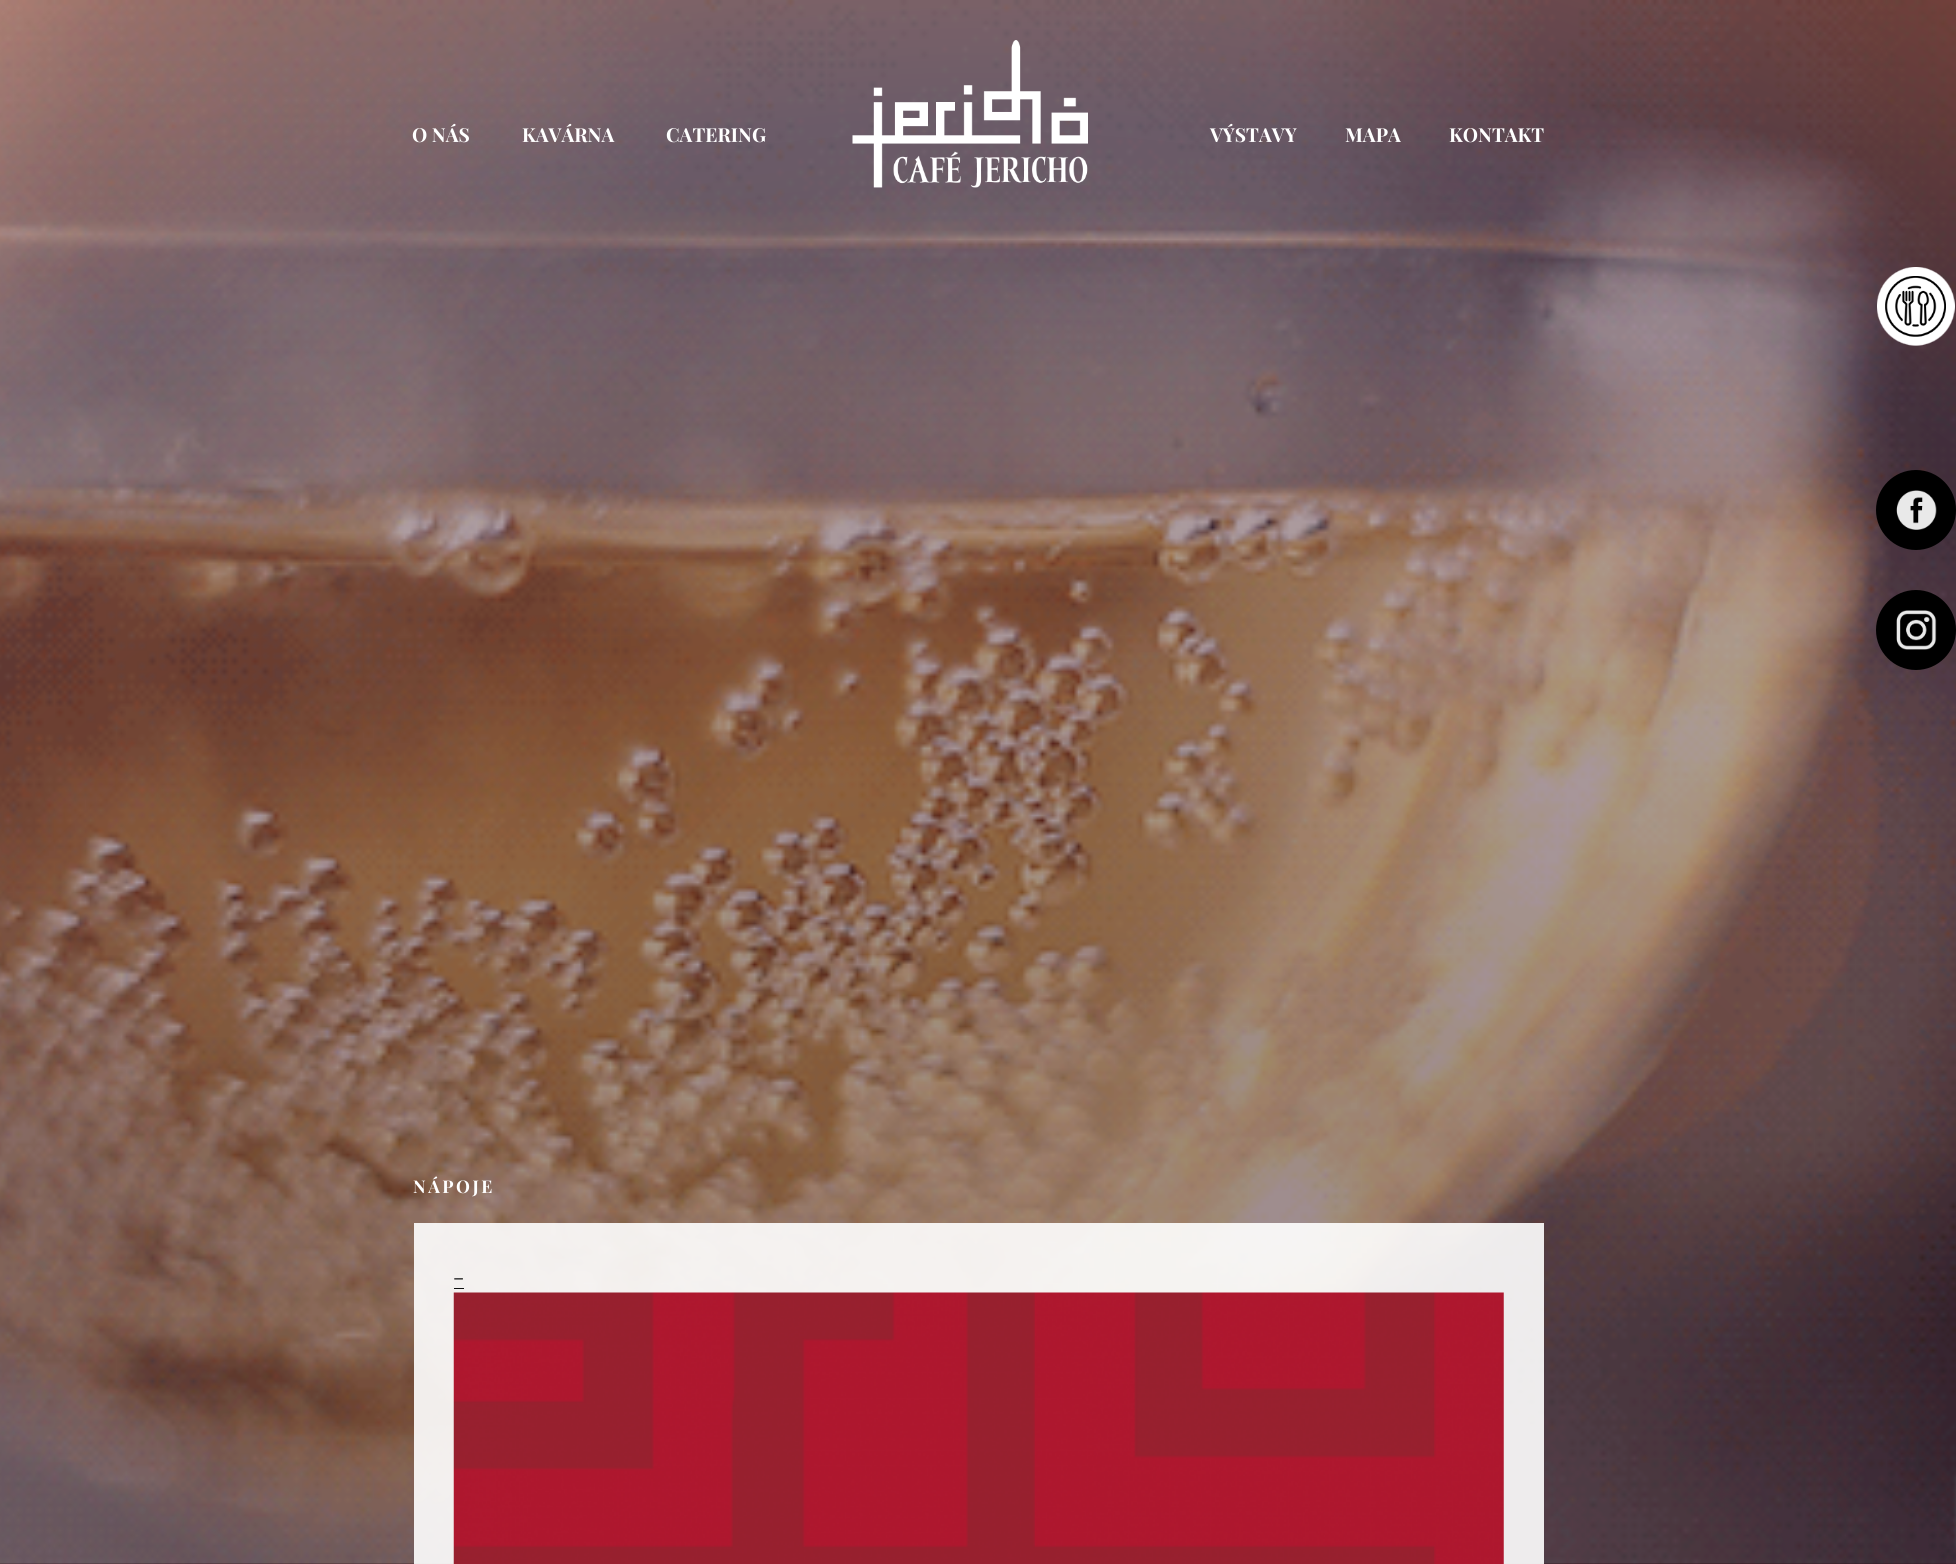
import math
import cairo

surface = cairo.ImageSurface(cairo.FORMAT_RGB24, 1956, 1564)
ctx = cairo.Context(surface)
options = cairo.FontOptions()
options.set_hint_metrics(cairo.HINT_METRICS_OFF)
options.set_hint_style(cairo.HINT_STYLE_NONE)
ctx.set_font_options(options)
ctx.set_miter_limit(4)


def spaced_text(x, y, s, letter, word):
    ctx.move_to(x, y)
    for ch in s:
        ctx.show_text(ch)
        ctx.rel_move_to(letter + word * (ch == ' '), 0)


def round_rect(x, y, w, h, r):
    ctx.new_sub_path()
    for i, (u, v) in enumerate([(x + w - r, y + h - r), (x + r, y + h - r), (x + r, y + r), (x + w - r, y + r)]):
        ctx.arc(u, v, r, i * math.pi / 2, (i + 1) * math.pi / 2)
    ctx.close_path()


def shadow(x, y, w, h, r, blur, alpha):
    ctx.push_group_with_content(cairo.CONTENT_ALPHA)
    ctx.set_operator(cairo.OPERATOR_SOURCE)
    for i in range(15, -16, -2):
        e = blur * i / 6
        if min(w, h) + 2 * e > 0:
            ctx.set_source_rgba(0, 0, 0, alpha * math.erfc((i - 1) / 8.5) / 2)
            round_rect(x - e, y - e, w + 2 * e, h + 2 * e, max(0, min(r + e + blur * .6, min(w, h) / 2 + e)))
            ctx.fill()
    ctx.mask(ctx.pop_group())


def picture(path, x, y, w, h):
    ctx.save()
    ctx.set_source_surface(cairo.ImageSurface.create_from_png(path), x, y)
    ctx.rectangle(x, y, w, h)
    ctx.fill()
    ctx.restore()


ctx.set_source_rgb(1, 1, 1)
ctx.paint()
gradient = cairo.RadialGradient(978, 1807, 0, 978, 1807, 2055)
gradient.add_color_stop_rgba(0.4, 0.165, 0.008, 0.043, 1)
gradient.add_color_stop_rgba(0.82, 0.345, 0.208, 0.275, 1)
gradient.add_color_stop_rgba(1, 0.757, 0.369, 0.267, 1)
ctx.set_source(gradient)
ctx.rectangle(0, 0, 1956, 1564)
ctx.fill()
ctx.set_source_rgb(0.502, 0.502, 0.502)
shadow(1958, 1473, 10, 75, 2.5, 3, 1)
picture("img1.png", 0, 0, 1956, 1564)
picture("img2.png", 852, 40, 236, 148)
ctx.select_font_face("Playfair Display", cairo.FONT_SLANT_NORMAL, cairo.FONT_WEIGHT_BOLD)
ctx.set_font_size(19.25)
ctx.set_source_rgb(1, 1, 1)
ctx.move_to(412, 142)
ctx.show_text("O NÁS")
ctx.move_to(522, 142)
ctx.show_text("KAVÁRNA")
ctx.move_to(666, 142)
ctx.show_text("CATERING")
ctx.move_to(1210, 142)
ctx.show_text("VÝSTAVY")
ctx.move_to(1345, 142)
ctx.show_text("MAPA")
ctx.move_to(1449, 142)
ctx.show_text("KONTAKT")
picture("img3.png", 1877, 267, 78, 79)
ctx.set_source_rgb(0, 0, 0)
ctx.arc(1916, 510, 40, 0, 2 * math.pi)
ctx.fill()
picture("img4.png", 1896, 490, 41, 40)
ctx.arc(1916, 630, 40, 0, 2 * math.pi)
ctx.fill()
picture("img5.png", 1896, 610, 41, 40)
ctx.set_font_size(17.5)
ctx.set_source_rgb(1, 1, 1)
spaced_text(413, 1193, "NÁPOJE", 2.5, 0)
ctx.set_source_rgba(1, 1, 1, 0.9)
ctx.rectangle(414, 1223, 1130, 341)
ctx.fill()
ctx.select_font_face("Libre Franklin")
ctx.set_font_size(20)
ctx.set_source_rgb(0.133, 0.133, 0.133)
ctx.move_to(453, 1284)
ctx.show_text("–")
ctx.set_source_rgb(0.059, 0.059, 0.059)
ctx.rectangle(454, 1288, 10, 1)
ctx.fill()
picture("img6.png", 453, 1292, 1051, 272)
surface.write_to_png("page.png")
